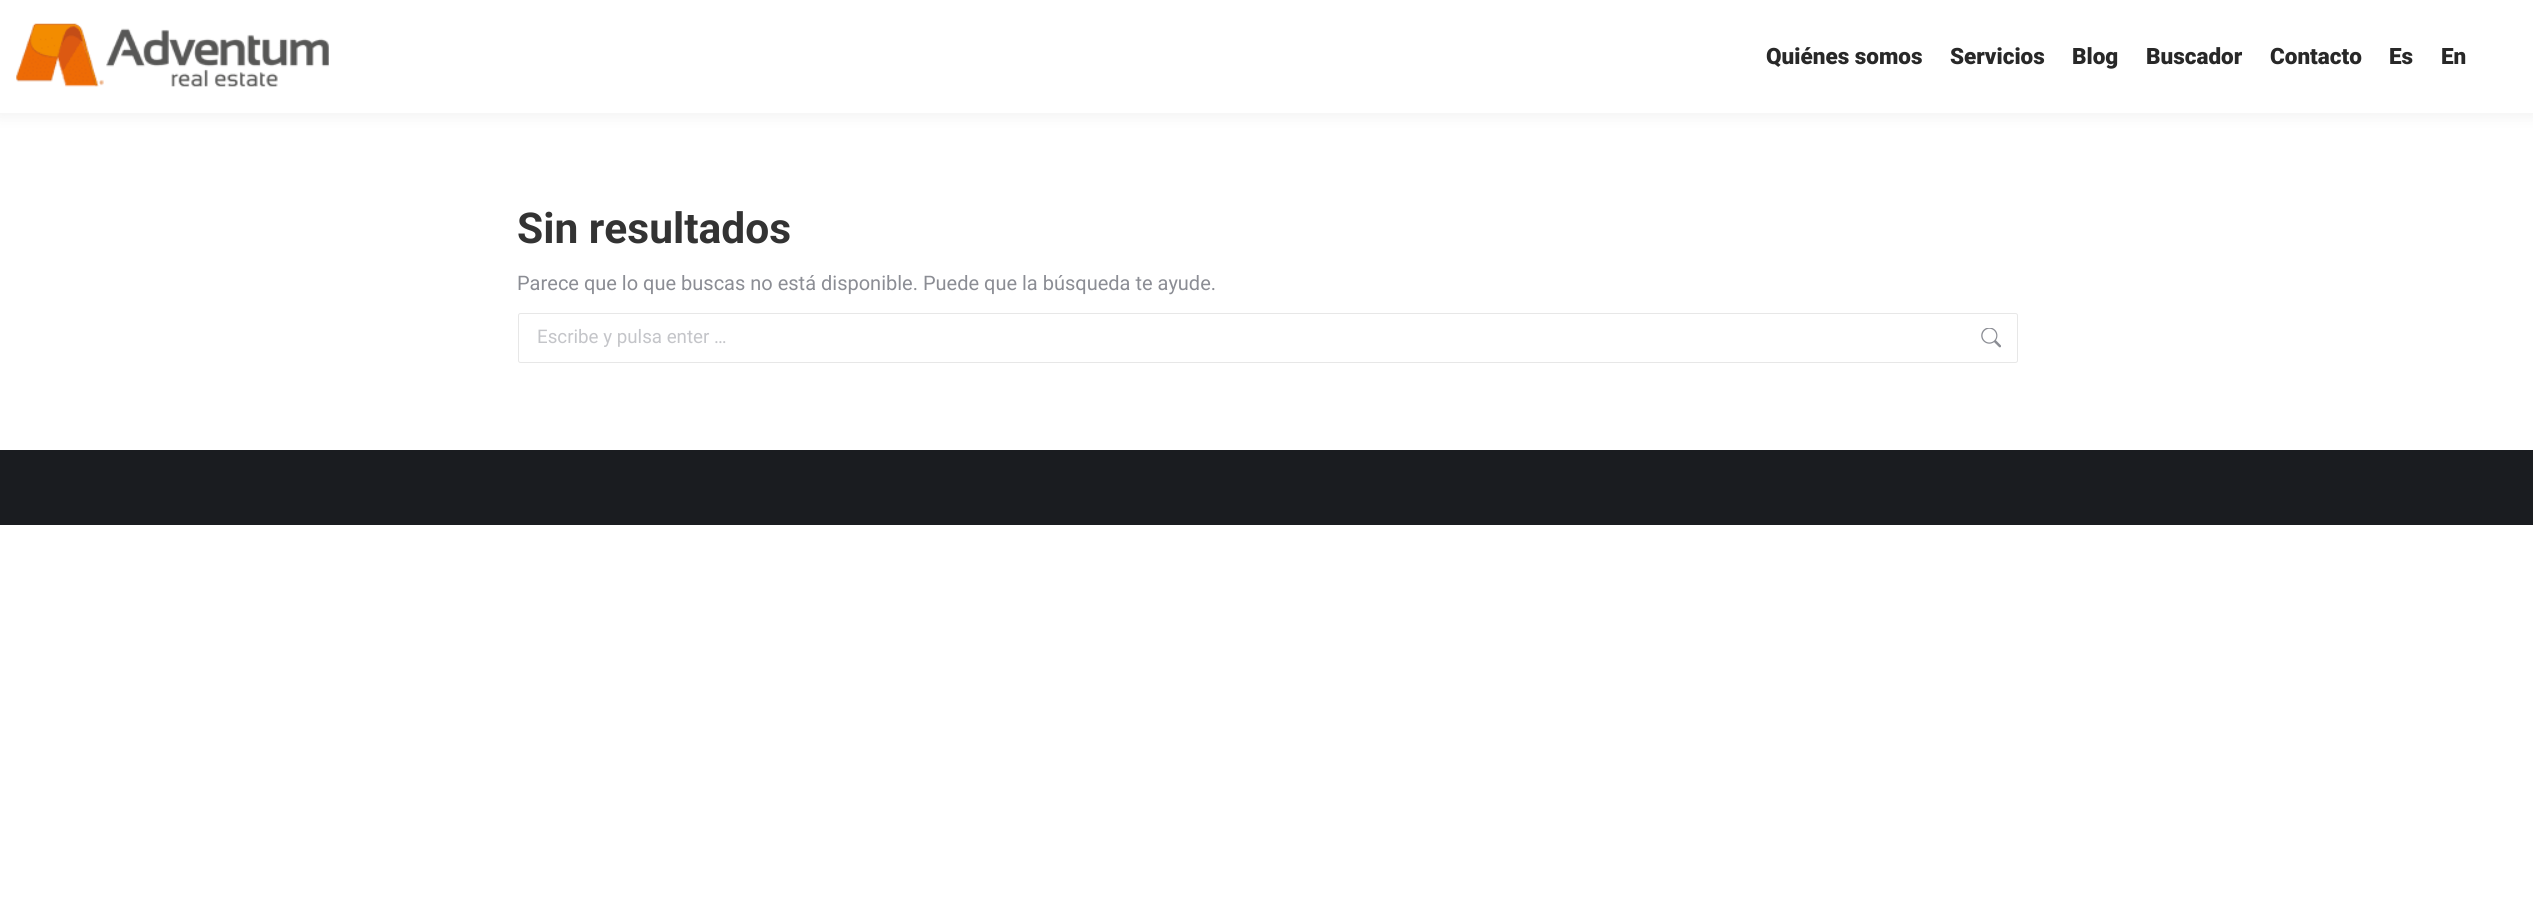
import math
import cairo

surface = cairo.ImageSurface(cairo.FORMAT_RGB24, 2533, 919)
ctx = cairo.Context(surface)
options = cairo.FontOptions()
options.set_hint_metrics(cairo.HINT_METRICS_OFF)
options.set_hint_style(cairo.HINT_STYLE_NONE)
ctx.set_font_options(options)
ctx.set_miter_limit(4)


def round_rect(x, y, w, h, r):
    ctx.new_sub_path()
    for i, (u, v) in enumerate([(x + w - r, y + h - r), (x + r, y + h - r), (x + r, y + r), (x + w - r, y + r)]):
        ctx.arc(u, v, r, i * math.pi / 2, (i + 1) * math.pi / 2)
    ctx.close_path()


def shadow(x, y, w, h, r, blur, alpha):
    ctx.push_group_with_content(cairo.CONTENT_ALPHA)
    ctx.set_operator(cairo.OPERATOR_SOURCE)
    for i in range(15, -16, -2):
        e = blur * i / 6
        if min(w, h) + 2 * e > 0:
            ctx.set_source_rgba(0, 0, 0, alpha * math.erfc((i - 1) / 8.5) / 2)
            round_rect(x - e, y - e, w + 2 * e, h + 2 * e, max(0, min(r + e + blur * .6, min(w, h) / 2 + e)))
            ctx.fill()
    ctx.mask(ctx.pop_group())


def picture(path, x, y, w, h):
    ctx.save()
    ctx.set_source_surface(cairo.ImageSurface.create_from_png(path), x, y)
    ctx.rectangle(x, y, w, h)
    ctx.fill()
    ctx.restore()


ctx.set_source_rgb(1, 1, 1)
ctx.paint()
ctx.set_source_rgb(0, 0, 0)
shadow(-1, -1, 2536, 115, 0, 9.5, 0.07)
ctx.set_source_rgb(1, 1, 1)
ctx.rectangle(0, 0, 2533, 113)
ctx.fill()
picture("img1.png", 16, 23, 313, 64)
ctx.select_font_face("Roboto Black")
ctx.set_font_size(22.5)
ctx.set_source_rgb(0.157, 0.157, 0.157)
ctx.move_to(1766, 64)
ctx.show_text("Quiénes somos")
ctx.move_to(1950, 64)
ctx.show_text("Servicios")
ctx.move_to(2072, 64)
ctx.show_text("Blog")
ctx.move_to(2146, 64)
ctx.show_text("Buscador")
ctx.move_to(2270, 64)
ctx.show_text("Contacto")
ctx.move_to(2389, 64)
ctx.show_text("Es")
ctx.move_to(2441, 64)
ctx.show_text("En")
ctx.select_font_face("Roboto", cairo.FONT_SLANT_NORMAL, cairo.FONT_WEIGHT_BOLD)
ctx.set_font_size(42.5)
ctx.set_source_rgb(0.2, 0.2, 0.2)
ctx.move_to(517, 243)
ctx.show_text("Sin resultados")
ctx.select_font_face("Roboto")
ctx.set_font_size(20)
ctx.set_source_rgb(0.545, 0.553, 0.58)
ctx.move_to(517, 290)
ctx.show_text("Parece que lo que buscas no está disponible. Puede que la búsqueda te ayude.")
round_rect(518.5, 313.5, 1499, 49, 2)
ctx.set_source_rgb(0.906, 0.906, 0.906)
ctx.set_line_width(1)
ctx.stroke()
ctx.set_font_size(18.75)
ctx.set_source_rgb(0.769, 0.773, 0.788)
ctx.move_to(537, 343)
ctx.show_text("Escribe y pulsa enter …")
picture("img2.png", 1981, 328, 20, 20)
ctx.set_source_rgb(0.102, 0.11, 0.125)
ctx.rectangle(0, 450, 2533, 75)
ctx.fill()
surface.write_to_png("page.png")
